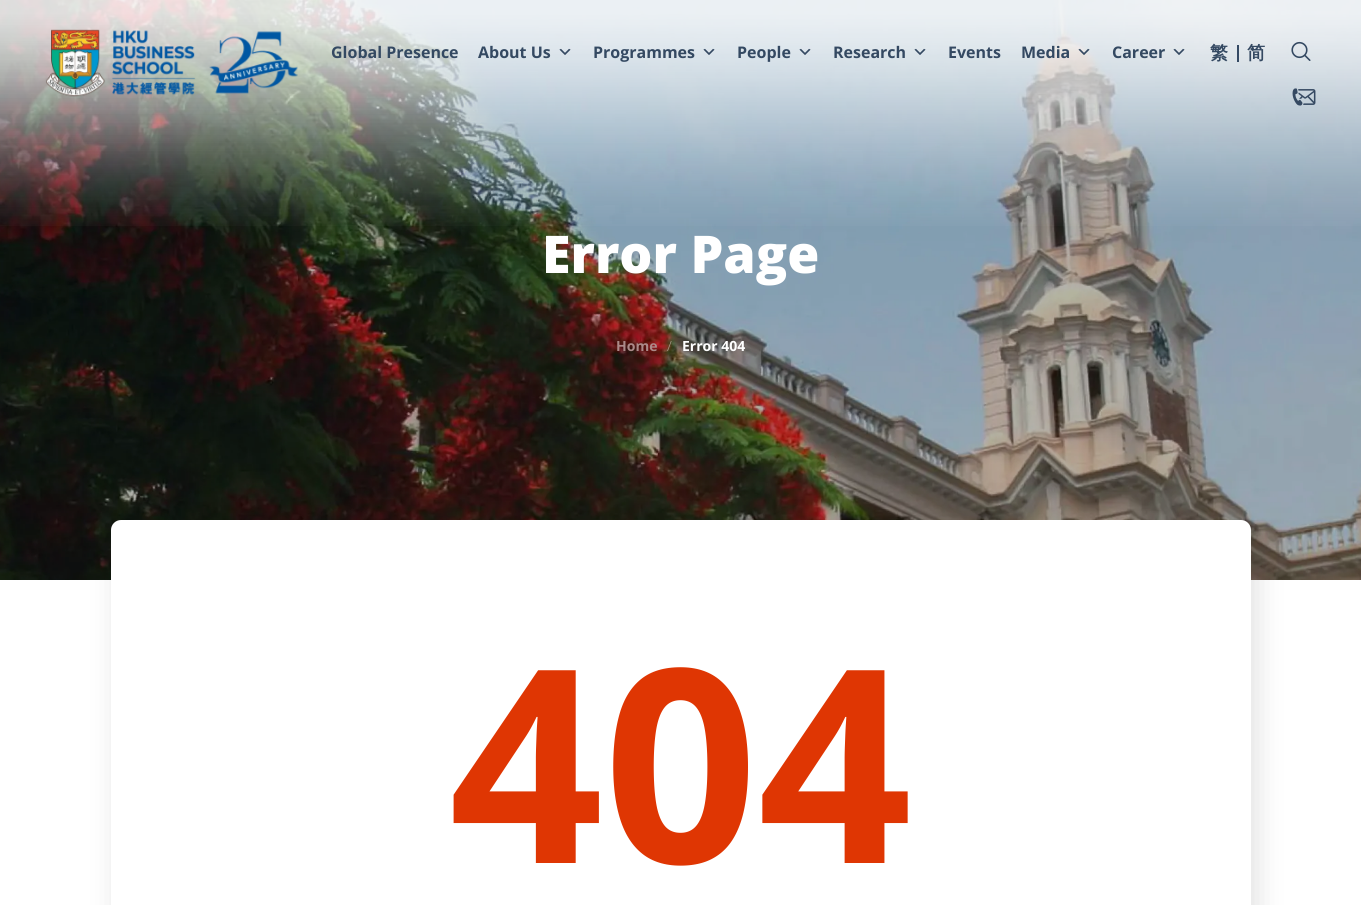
import math
import cairo

surface = cairo.ImageSurface(cairo.FORMAT_RGB24, 1361, 905)
ctx = cairo.Context(surface)
options = cairo.FontOptions()
options.set_hint_metrics(cairo.HINT_METRICS_OFF)
options.set_hint_style(cairo.HINT_STYLE_NONE)
ctx.set_font_options(options)
ctx.set_miter_limit(4)


def round_rect(x, y, w, h, r):
    ctx.new_sub_path()
    for i, (u, v) in enumerate([(x + w - r, y + h - r), (x + r, y + h - r), (x + r, y + r), (x + w - r, y + r)]):
        ctx.arc(u, v, r, i * math.pi / 2, (i + 1) * math.pi / 2)
    ctx.close_path()


def shadow(x, y, w, h, r, blur, alpha):
    ctx.push_group_with_content(cairo.CONTENT_ALPHA)
    ctx.set_operator(cairo.OPERATOR_SOURCE)
    for i in range(15, -16, -2):
        e = blur * i / 6
        if min(w, h) + 2 * e > 0:
            ctx.set_source_rgba(0, 0, 0, alpha * math.erfc((i - 1) / 8.5) / 2)
            round_rect(x - e, y - e, w + 2 * e, h + 2 * e, max(0, min(r + e + blur * .6, min(w, h) / 2 + e)))
            ctx.fill()
    ctx.mask(ctx.pop_group())


def picture(path, x, y, w, h):
    ctx.save()
    ctx.set_source_surface(cairo.ImageSurface.create_from_png(path), x, y)
    ctx.rectangle(x, y, w, h)
    ctx.fill()
    ctx.restore()


ctx.set_source_rgb(1, 1, 1)
ctx.paint()
picture("img11.png", 0, 0, 1361, 580)
picture("img1.png", 0, 0, 1361, 226)
picture("img2.png", 45, 29, 253, 68)
ctx.select_font_face("Open Sans", cairo.FONT_SLANT_NORMAL, cairo.FONT_WEIGHT_BOLD)
ctx.set_font_size(16)
ctx.set_source_rgb(0.204, 0.286, 0.384)
ctx.move_to(331, 58)
ctx.show_text("Global Presence")
ctx.move_to(478, 58)
ctx.show_text("About Us")
picture("img3.png", 559, 48, 12, 7)
ctx.move_to(593, 58)
ctx.show_text("Programmes")
picture("img4.png", 703, 48, 12, 7)
ctx.move_to(737, 58)
ctx.show_text("People")
picture("img5.png", 799, 48, 12, 7)
ctx.move_to(833, 58)
ctx.show_text("Research")
picture("img6.png", 914, 48, 12, 7)
ctx.move_to(948, 58)
ctx.show_text("Events")
ctx.move_to(1021, 58)
ctx.show_text("Media")
picture("img7.png", 1078, 48, 12, 7)
ctx.move_to(1112, 58)
ctx.show_text("Career")
picture("img8.png", 1173, 48, 12, 7)
ctx.select_font_face("WenQuanYi Zen Hei", cairo.FONT_SLANT_NORMAL, cairo.FONT_WEIGHT_BOLD)
ctx.set_font_size(18)
ctx.move_to(1210, 59)
ctx.show_text("繁")
ctx.set_source_rgb(0.204, 0.286, 0.388)
ctx.rectangle(1237, 45, 2, 17)
ctx.fill()
ctx.set_source_rgb(0.204, 0.286, 0.384)
ctx.move_to(1247, 59)
ctx.show_text("简")
picture("img9.png", 1291, 41, 20, 20)
picture("img10.png", 1292, 88, 24, 18)
ctx.select_font_face("Open Sans ExtraBold")
ctx.set_font_size(52)
ctx.set_source_rgb(1, 1, 1)
ctx.move_to(542, 273)
ctx.show_text("Error Page")
ctx.select_font_face("Open Sans", cairo.FONT_SLANT_NORMAL, cairo.FONT_WEIGHT_BOLD)
ctx.set_font_size(14)
ctx.set_source_rgb(0.675, 0.541, 0.537)
ctx.move_to(616, 351)
ctx.show_text("Home")
ctx.select_font_face("Open Sans Light")
ctx.set_source_rgb(0.678, 0.631, 0.573)
ctx.move_to(667, 351)
ctx.show_text("/")
ctx.select_font_face("Open Sans", cairo.FONT_SLANT_NORMAL, cairo.FONT_WEIGHT_BOLD)
ctx.set_source_rgb(1, 1, 1)
ctx.move_to(682, 351)
ctx.show_text("Error 404")
ctx.save()
ctx.rectangle(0, 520, 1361, 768)
ctx.clip()
ctx.set_source_rgb(0, 0, 0)
shadow(117, 525, 1140, 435, 10, 15, 0.12)
ctx.restore()
ctx.new_path()
ctx.move_to(121, 520)
ctx.line_to(1241, 520)
ctx.curve_to(1246.5, 520, 1251, 524.5, 1251, 530)
ctx.line_to(1251, 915)
ctx.line_to(111, 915)
ctx.line_to(111, 530)
ctx.curve_to(111, 524.5, 115.5, 520, 121, 520)
ctx.close_path()
ctx.fill()
ctx.set_font_size(270)
ctx.set_source_rgb(0.875, 0.212, 0.012)
ctx.move_to(449, 863)
ctx.show_text("404")
surface.write_to_png("page.png")
